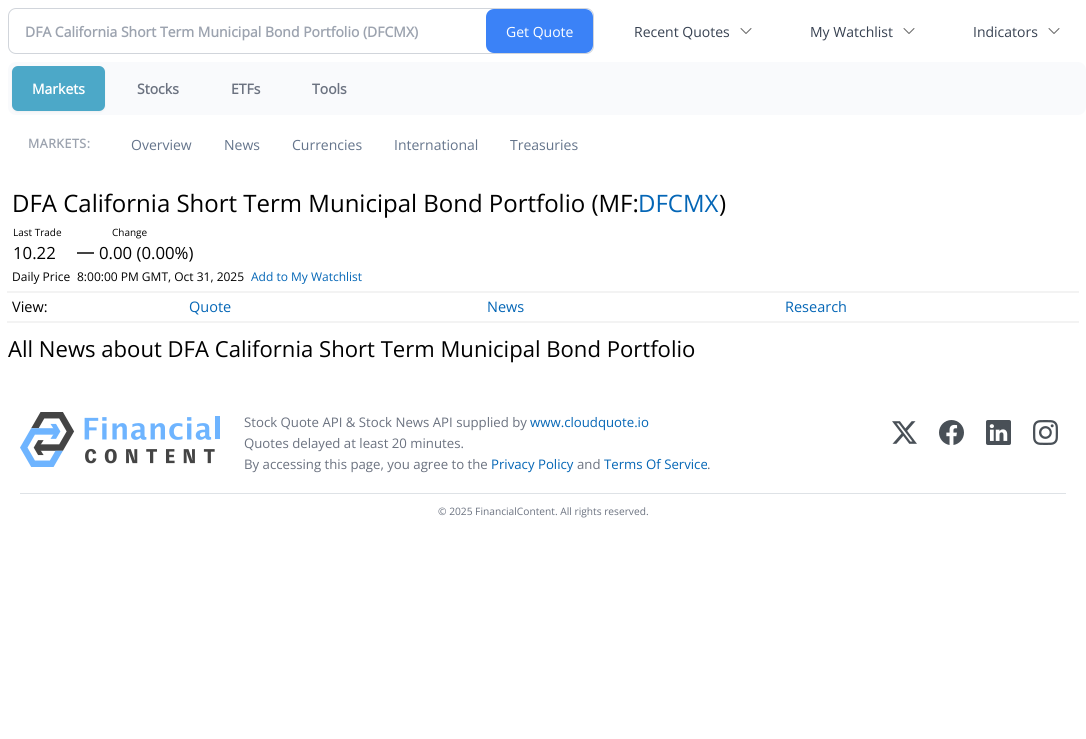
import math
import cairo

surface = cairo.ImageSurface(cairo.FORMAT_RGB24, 1086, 739)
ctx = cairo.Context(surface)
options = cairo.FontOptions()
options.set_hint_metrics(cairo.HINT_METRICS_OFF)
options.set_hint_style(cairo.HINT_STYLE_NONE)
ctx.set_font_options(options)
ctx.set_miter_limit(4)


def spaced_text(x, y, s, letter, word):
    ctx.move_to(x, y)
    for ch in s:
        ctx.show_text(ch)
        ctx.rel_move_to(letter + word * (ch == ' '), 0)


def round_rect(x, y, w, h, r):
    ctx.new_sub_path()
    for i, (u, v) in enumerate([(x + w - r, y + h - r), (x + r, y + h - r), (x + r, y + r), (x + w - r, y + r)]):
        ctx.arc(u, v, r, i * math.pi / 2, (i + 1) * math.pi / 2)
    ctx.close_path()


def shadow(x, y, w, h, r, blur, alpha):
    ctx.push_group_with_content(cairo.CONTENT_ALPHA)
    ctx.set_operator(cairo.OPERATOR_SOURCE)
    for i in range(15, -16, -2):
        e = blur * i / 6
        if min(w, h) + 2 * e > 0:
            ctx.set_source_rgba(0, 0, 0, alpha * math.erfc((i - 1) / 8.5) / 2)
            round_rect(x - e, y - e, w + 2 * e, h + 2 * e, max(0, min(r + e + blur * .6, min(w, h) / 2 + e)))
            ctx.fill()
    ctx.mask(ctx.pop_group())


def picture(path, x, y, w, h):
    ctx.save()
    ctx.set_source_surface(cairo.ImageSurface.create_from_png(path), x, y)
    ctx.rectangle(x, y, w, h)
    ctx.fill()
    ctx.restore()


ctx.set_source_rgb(1, 1, 1)
ctx.paint()
round_rect(8.5, 8.5, 585, 45, 7.5)
ctx.set_source_rgb(0.82, 0.835, 0.859)
ctx.set_line_width(1)
ctx.stroke()
ctx.select_font_face("Open Sans", cairo.FONT_SLANT_NORMAL, cairo.FONT_WEIGHT_BOLD)
ctx.set_font_size(14)
ctx.set_source_rgb(0.612, 0.639, 0.686)
ctx.move_to(25, 37)
ctx.show_text("DFA California Short Term Municipal Bond Portfolio (DFCMX)")
ctx.set_source_rgb(0.231, 0.51, 0.965)
round_rect(486, 9, 107, 44, 8)
ctx.fill()
ctx.select_font_face("Open Sans")
ctx.set_source_rgb(1, 1, 1)
ctx.move_to(506, 37)
ctx.show_text("Get Quote")
ctx.set_source_rgb(0.216, 0.255, 0.318)
ctx.move_to(634, 37)
ctx.show_text("Recent Quotes")
ctx.new_path()
ctx.move_to(751, 28.5)
ctx.line_to(746, 33.5)
ctx.line_to(741, 28.5)
ctx.set_source_rgb(0.4, 0.4, 0.4)
ctx.set_line_cap(cairo.LINE_CAP_ROUND)
ctx.set_line_join(cairo.LINE_JOIN_ROUND)
ctx.stroke()
ctx.set_source_rgb(0.216, 0.255, 0.318)
ctx.move_to(810, 37)
ctx.show_text("My Watchlist")
ctx.new_path()
ctx.move_to(914, 28.5)
ctx.line_to(909, 33.5)
ctx.line_to(904, 28.5)
ctx.set_source_rgb(0.4, 0.4, 0.4)
ctx.stroke()
ctx.set_source_rgb(0.216, 0.255, 0.318)
ctx.move_to(973, 37)
ctx.show_text("Indicators")
ctx.new_path()
ctx.move_to(1059, 28.5)
ctx.line_to(1054, 33.5)
ctx.line_to(1049, 28.5)
ctx.set_source_rgb(0.4, 0.4, 0.4)
ctx.stroke()
ctx.set_source_rgb(0.973, 0.98, 0.988)
round_rect(8, 62, 1078, 53, 8)
ctx.fill()
ctx.set_source_rgb(0, 0, 0)
shadow(12, 67, 93, 45, 6, 1, 0.05)
ctx.set_source_rgb(0.298, 0.659, 0.784)
round_rect(12, 66, 93, 45, 6)
ctx.fill()
ctx.select_font_face("Open Sans", cairo.FONT_SLANT_NORMAL, cairo.FONT_WEIGHT_BOLD)
ctx.set_source_rgb(1, 1, 1)
ctx.move_to(32, 94)
ctx.show_text("Markets")
ctx.set_source_rgb(0.42, 0.447, 0.502)
ctx.move_to(137, 94)
ctx.show_text("Stocks")
ctx.move_to(231, 94)
ctx.show_text("ETFs")
ctx.move_to(312, 94)
ctx.show_text("Tools")
ctx.set_font_size(12.5)
ctx.set_source_rgb(0.612, 0.639, 0.686)
spaced_text(28, 148, "MARKETS:", 0.5, 0)
ctx.select_font_face("Open Sans")
ctx.set_font_size(14)
ctx.set_source_rgb(0.392, 0.455, 0.545)
ctx.move_to(131, 150)
ctx.show_text("Overview")
ctx.move_to(224, 150)
ctx.show_text("News")
ctx.move_to(292, 150)
ctx.show_text("Currencies")
ctx.move_to(394, 150)
ctx.show_text("International")
ctx.move_to(510, 150)
ctx.show_text("Treasuries")
ctx.set_font_size(24)
ctx.set_source_rgb(0, 0, 0)
ctx.move_to(12, 212)
ctx.show_text("DFA California Short Term Municipal Bond Portfolio (MF:")
ctx.set_source_rgb(0.016, 0.4, 0.714)
ctx.move_to(638, 212)
ctx.show_text("DFCMX")
ctx.set_source_rgb(0, 0, 0)
ctx.move_to(719, 212)
ctx.show_text(")")
ctx.set_font_size(10)
ctx.move_to(13, 236)
ctx.show_text("Last Trade")
ctx.set_font_size(16.75)
ctx.move_to(13, 259)
ctx.show_text("10.22")
ctx.set_font_size(10)
ctx.move_to(112, 236)
ctx.show_text("Change")
ctx.set_font_size(16.75)
ctx.move_to(99, 259)
ctx.show_text("0.00 (0.00%)")
ctx.set_source_rgb(0.267, 0.267, 0.267)
ctx.rectangle(77, 252, 17, 2)
ctx.fill()
ctx.set_font_size(12)
ctx.set_source_rgb(0, 0, 0)
ctx.move_to(12, 281)
ctx.show_text("Daily Price")
ctx.move_to(77, 281)
ctx.show_text("8:00:00 PM GMT, Oct 31, 2025")
ctx.set_source_rgb(0.016, 0.4, 0.714)
ctx.move_to(251, 281)
ctx.show_text("Add to My Watchlist")
ctx.set_source_rgb(0.953, 0.953, 0.953)
ctx.rectangle(7, 291, 1072, 2)
ctx.fill()
ctx.rectangle(7, 321, 1072, 2)
ctx.fill()
ctx.set_font_size(14.5)
ctx.set_source_rgb(0, 0, 0)
ctx.move_to(12, 312)
ctx.show_text("View:")
ctx.set_source_rgb(0.016, 0.4, 0.714)
ctx.move_to(189, 312)
ctx.show_text("Quote")
ctx.move_to(487, 312)
ctx.show_text("News")
ctx.move_to(785, 312)
ctx.show_text("Research")
ctx.set_font_size(22.1)
ctx.set_source_rgb(0, 0, 0)
ctx.move_to(8, 357)
ctx.show_text("All News about DFA California Short Term Municipal Bond Portfolio")
picture("img1.png", 20, 412, 200, 55)
ctx.set_font_size(13.2)
ctx.set_source_rgb(0.42, 0.447, 0.502)
ctx.move_to(244, 427)
ctx.show_text("Stock Quote API & Stock News API supplied by")
ctx.set_source_rgb(0.016, 0.4, 0.714)
ctx.move_to(530, 427)
ctx.show_text("www.cloudquote.io")
ctx.set_source_rgb(0.42, 0.447, 0.502)
ctx.move_to(244, 448)
ctx.show_text("Quotes delayed at least 20 minutes.")
ctx.move_to(244, 469)
ctx.show_text("By accessing this page, you agree to the")
ctx.set_source_rgb(0.016, 0.4, 0.714)
ctx.move_to(491, 469)
ctx.show_text("Privacy Policy")
ctx.set_source_rgb(0.42, 0.447, 0.502)
ctx.move_to(577, 469)
ctx.show_text("and")
ctx.set_source_rgb(0.016, 0.4, 0.714)
ctx.move_to(604, 469)
ctx.show_text("Terms Of Service")
ctx.set_source_rgb(0.42, 0.447, 0.502)
ctx.move_to(707, 469)
ctx.show_text(".")
picture("img2.png", 892, 421, 25, 23)
picture("img3.png", 939, 420, 25, 25)
picture("img4.png", 986, 420, 25, 25)
picture("img5.png", 1033, 420, 25, 25)
ctx.set_source_rgb(0.871, 0.886, 0.902)
ctx.rectangle(20, 493, 1046, 1)
ctx.fill()
ctx.set_font_size(10.2)
ctx.set_source_rgb(0.42, 0.447, 0.502)
ctx.move_to(438, 515)
ctx.show_text("© 2025 FinancialContent. All rights reserved.")
surface.write_to_png("page.png")
